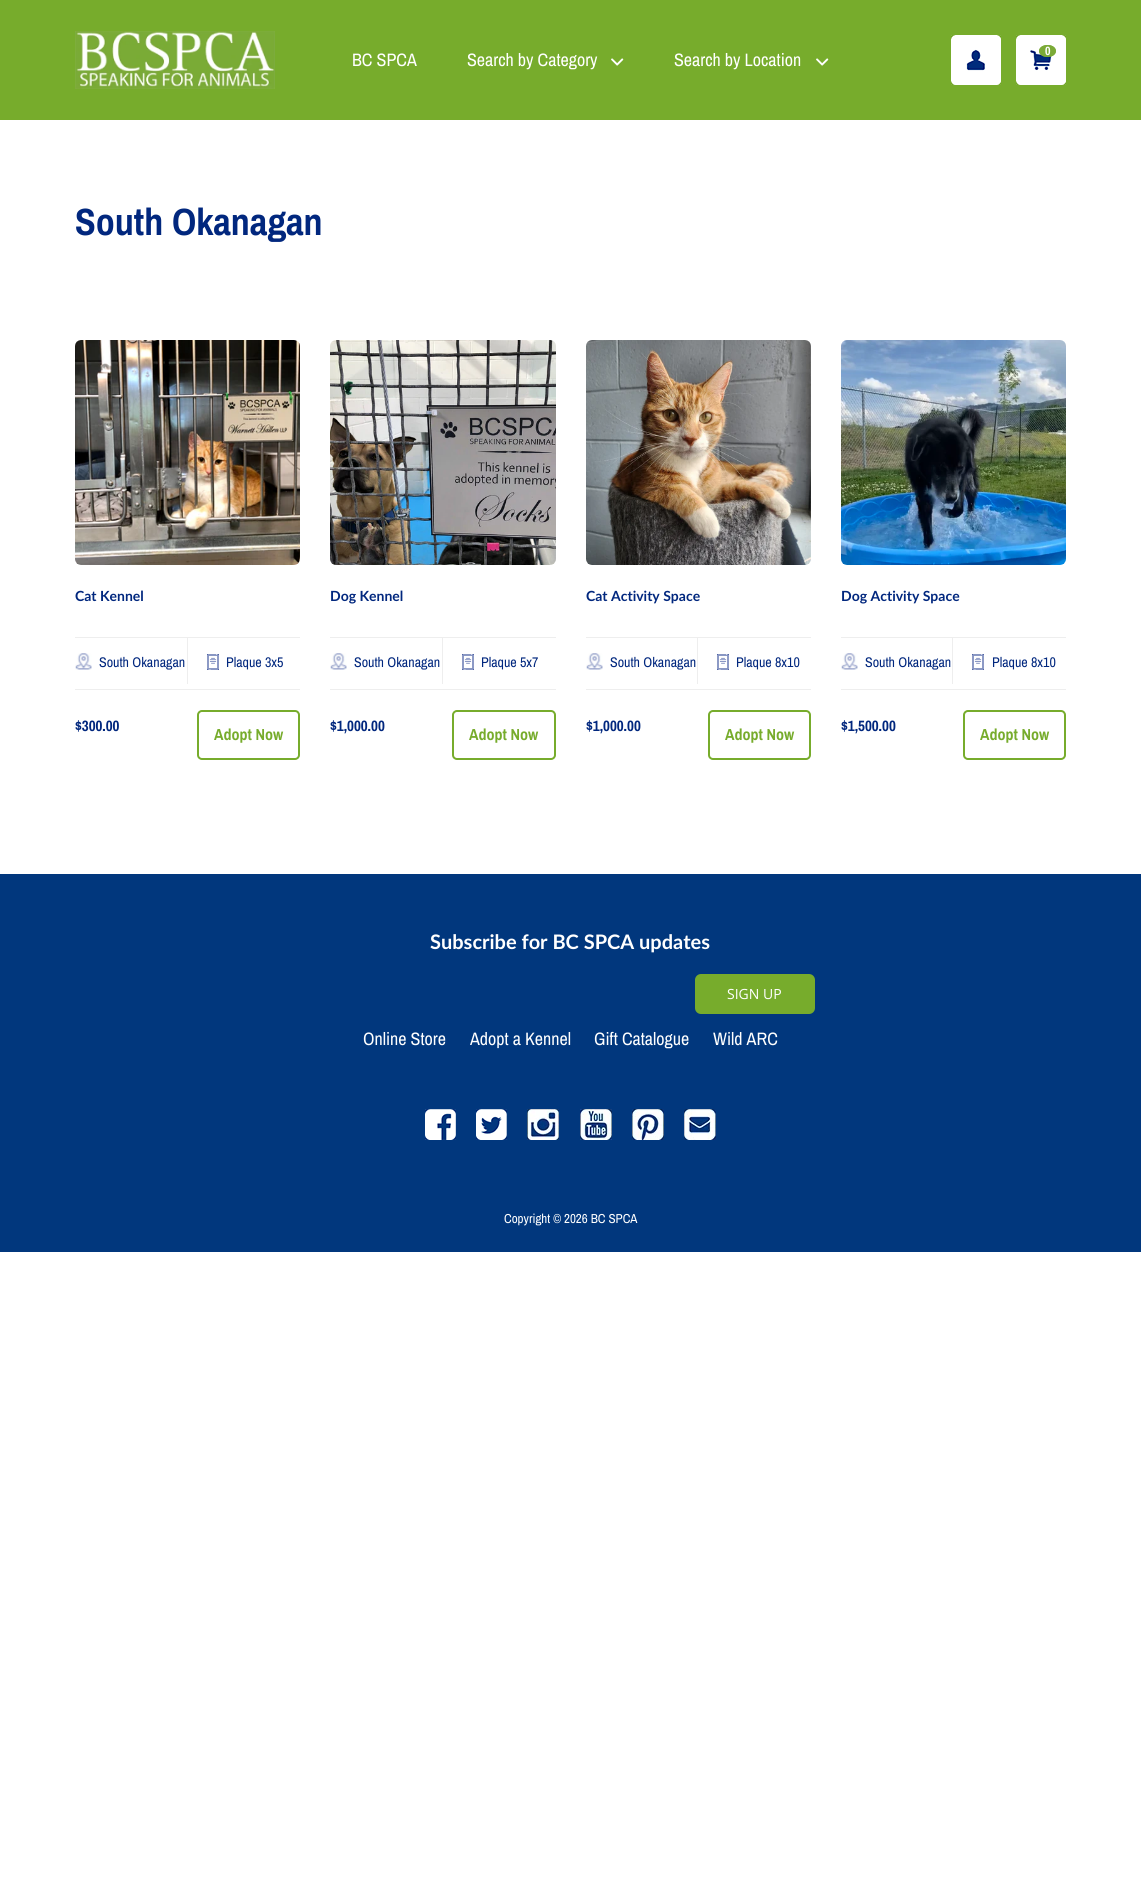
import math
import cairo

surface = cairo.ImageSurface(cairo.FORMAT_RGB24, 1141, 1903)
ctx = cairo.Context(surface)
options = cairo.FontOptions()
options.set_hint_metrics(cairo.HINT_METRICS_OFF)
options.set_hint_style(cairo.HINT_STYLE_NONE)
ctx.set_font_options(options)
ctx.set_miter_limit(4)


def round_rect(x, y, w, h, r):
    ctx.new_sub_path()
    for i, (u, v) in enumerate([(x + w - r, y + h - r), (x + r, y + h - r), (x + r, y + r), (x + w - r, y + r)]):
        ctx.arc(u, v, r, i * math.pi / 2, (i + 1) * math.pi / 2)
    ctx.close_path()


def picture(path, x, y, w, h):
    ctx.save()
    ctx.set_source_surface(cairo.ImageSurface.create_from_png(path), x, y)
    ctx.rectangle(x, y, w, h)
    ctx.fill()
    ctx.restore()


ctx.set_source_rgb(1, 1, 1)
ctx.paint()
ctx.set_source_rgb(0.467, 0.675, 0.173)
ctx.rectangle(0, 0, 1141, 120)
ctx.fill()
picture("img1.png", 75, 31, 200, 58)
picture("img2.png", 951, 35, 50, 50)
picture("img3.png", 1016, 35, 50, 50)
ctx.set_source_rgb(0.482, 0.667, 0.216)
ctx.new_path()
ctx.move_to(1047.5, 45)
ctx.curve_to(1052, 45, 1056, 47.5, 1056, 51)
ctx.curve_to(1056, 54.5, 1052, 57, 1047.5, 57)
ctx.curve_to(1043, 57, 1039, 54.5, 1039, 51)
ctx.curve_to(1039, 47.5, 1043, 45, 1047.5, 45)
ctx.close_path()
ctx.fill()
ctx.new_path()
ctx.move_to(1047.5, 45.5)
ctx.curve_to(1058, 45.5, 1058, 56.5, 1047.5, 56.5)
ctx.curve_to(1037, 56.5, 1037, 45.5, 1047.5, 45.5)
ctx.close_path()
ctx.set_line_width(1)
ctx.stroke()
ctx.select_font_face("Archivo Narrow", cairo.FONT_SLANT_NORMAL, cairo.FONT_WEIGHT_BOLD)
ctx.set_font_size(12)
ctx.set_source_rgb(1, 1, 1)
ctx.move_to(1045, 55)
ctx.show_text("0")
ctx.select_font_face("Archivo Narrow")
ctx.set_font_size(18)
ctx.move_to(352, 66)
ctx.show_text("BC SPCA")
ctx.move_to(467, 66)
ctx.show_text("Search by Category")
picture("img4.png", 611, 58, 13, 8)
ctx.move_to(674, 66)
ctx.show_text("Search by Location")
picture("img4.png", 816, 58, 13, 8)
ctx.select_font_face("Archivo Narrow", cairo.FONT_SLANT_NORMAL, cairo.FONT_WEIGHT_BOLD)
ctx.set_font_size(38)
ctx.set_source_rgb(0.004, 0.153, 0.494)
ctx.move_to(75, 235)
ctx.show_text("South Okanagan")
picture("img5.png", 75, 340, 225, 225)
ctx.select_font_face("Lato", cairo.FONT_SLANT_NORMAL, cairo.FONT_WEIGHT_BOLD)
ctx.set_font_size(14)
ctx.move_to(75, 601)
ctx.show_text("Cat Kennel")
ctx.set_source_rgb(0.933, 0.933, 0.933)
ctx.rectangle(75, 637, 225, 1)
ctx.fill()
ctx.rectangle(75, 689, 225, 1)
ctx.fill()
ctx.rectangle(187, 638, 1, 46)
ctx.fill()
picture("img6.png", 75, 653, 17, 17)
ctx.select_font_face("Archivo Narrow")
ctx.set_source_rgb(0.004, 0.153, 0.494)
ctx.move_to(99, 667)
ctx.show_text("South Okanagan")
picture("img7.png", 207, 654, 12, 16)
ctx.move_to(226, 667)
ctx.show_text("Plaque 3x5")
ctx.select_font_face("Archivo Narrow", cairo.FONT_SLANT_NORMAL, cairo.FONT_WEIGHT_BOLD)
ctx.set_font_size(15)
ctx.move_to(75, 731)
ctx.show_text("$300.00")
round_rect(198, 711, 101, 48, 4)
ctx.set_source_rgb(0.467, 0.675, 0.173)
ctx.set_line_width(2)
ctx.stroke()
ctx.set_font_size(16)
ctx.move_to(214, 740)
ctx.show_text("Adopt Now")
picture("img8.png", 330, 340, 226, 225)
ctx.select_font_face("Lato", cairo.FONT_SLANT_NORMAL, cairo.FONT_WEIGHT_BOLD)
ctx.set_font_size(14)
ctx.set_source_rgb(0.004, 0.153, 0.494)
ctx.move_to(330, 601)
ctx.show_text("Dog Kennel")
ctx.set_source_rgb(0.933, 0.933, 0.933)
ctx.rectangle(330, 637, 226, 1)
ctx.fill()
ctx.rectangle(330, 689, 226, 1)
ctx.fill()
ctx.rectangle(442, 638, 1, 46)
ctx.fill()
picture("img6.png", 330, 653, 17, 17)
ctx.select_font_face("Archivo Narrow")
ctx.set_source_rgb(0.004, 0.153, 0.494)
ctx.move_to(354, 667)
ctx.show_text("South Okanagan")
picture("img7.png", 462, 654, 12, 16)
ctx.move_to(481, 667)
ctx.show_text("Plaque 5x7")
ctx.select_font_face("Archivo Narrow", cairo.FONT_SLANT_NORMAL, cairo.FONT_WEIGHT_BOLD)
ctx.set_font_size(15)
ctx.move_to(330, 731)
ctx.show_text("$1,000.00")
round_rect(453, 711, 102, 48, 4)
ctx.set_source_rgb(0.467, 0.675, 0.173)
ctx.stroke()
ctx.set_font_size(16)
ctx.move_to(469, 740)
ctx.show_text("Adopt Now")
picture("img9.png", 586, 340, 225, 225)
ctx.select_font_face("Lato", cairo.FONT_SLANT_NORMAL, cairo.FONT_WEIGHT_BOLD)
ctx.set_font_size(14)
ctx.set_source_rgb(0.004, 0.153, 0.494)
ctx.move_to(586, 601)
ctx.show_text("Cat Activity Space")
ctx.set_source_rgb(0.933, 0.933, 0.933)
ctx.rectangle(586, 637, 225, 1)
ctx.fill()
ctx.rectangle(586, 689, 225, 1)
ctx.fill()
ctx.rectangle(697, 638, 1, 46)
ctx.fill()
picture("img6.png", 586, 653, 17, 17)
ctx.select_font_face("Archivo Narrow")
ctx.set_source_rgb(0.004, 0.153, 0.494)
ctx.move_to(610, 667)
ctx.show_text("South Okanagan")
picture("img7.png", 717, 654, 12, 16)
ctx.move_to(736, 667)
ctx.show_text("Plaque 8x10")
ctx.select_font_face("Archivo Narrow", cairo.FONT_SLANT_NORMAL, cairo.FONT_WEIGHT_BOLD)
ctx.set_font_size(15)
ctx.move_to(586, 731)
ctx.show_text("$1,000.00")
round_rect(709, 711, 101, 48, 4)
ctx.set_source_rgb(0.467, 0.675, 0.173)
ctx.stroke()
ctx.set_font_size(16)
ctx.move_to(725, 740)
ctx.show_text("Adopt Now")
picture("img10.png", 841, 340, 225, 225)
ctx.select_font_face("Lato", cairo.FONT_SLANT_NORMAL, cairo.FONT_WEIGHT_BOLD)
ctx.set_font_size(14)
ctx.set_source_rgb(0.004, 0.153, 0.494)
ctx.move_to(841, 601)
ctx.show_text("Dog Activity Space")
ctx.set_source_rgb(0.933, 0.933, 0.933)
ctx.rectangle(841, 637, 225, 1)
ctx.fill()
ctx.rectangle(841, 689, 225, 1)
ctx.fill()
ctx.rectangle(952, 638, 1, 46)
ctx.fill()
picture("img6.png", 841, 653, 17, 17)
ctx.select_font_face("Archivo Narrow")
ctx.set_source_rgb(0.004, 0.153, 0.494)
ctx.move_to(865, 667)
ctx.show_text("South Okanagan")
picture("img7.png", 972, 654, 12, 16)
ctx.move_to(992, 667)
ctx.show_text("Plaque 8x10")
ctx.select_font_face("Archivo Narrow", cairo.FONT_SLANT_NORMAL, cairo.FONT_WEIGHT_BOLD)
ctx.set_font_size(15)
ctx.move_to(841, 731)
ctx.show_text("$1,500.00")
round_rect(964, 711, 101, 48, 4)
ctx.set_source_rgb(0.467, 0.675, 0.173)
ctx.stroke()
ctx.set_font_size(16)
ctx.move_to(980, 740)
ctx.show_text("Adopt Now")
ctx.set_source_rgb(0.004, 0.216, 0.49)
ctx.rectangle(0, 874, 1141, 378)
ctx.fill()
ctx.select_font_face("Lato", cairo.FONT_SLANT_NORMAL, cairo.FONT_WEIGHT_BOLD)
ctx.set_font_size(20)
ctx.set_source_rgb(1, 1, 1)
ctx.move_to(430, 949)
ctx.show_text("Subscribe for BC SPCA updates")
ctx.set_source_rgb(0.467, 0.675, 0.173)
round_rect(695, 974, 120, 40, 6)
ctx.fill()
ctx.select_font_face("Open Sans")
ctx.set_font_size(14)
ctx.set_source_rgb(1, 1, 1)
ctx.move_to(727, 999)
ctx.show_text("SIGN UP")
ctx.select_font_face("Archivo Narrow")
ctx.set_font_size(18)
ctx.move_to(363, 1045)
ctx.show_text("Online Store")
ctx.move_to(470, 1045)
ctx.show_text("Adopt a Kennel")
ctx.move_to(594, 1045)
ctx.show_text("Gift Catalogue")
ctx.move_to(713, 1045)
ctx.show_text("Wild ARC")
picture("img11.png", 425, 1109, 31, 31)
picture("img12.png", 476, 1109, 31, 31)
picture("img13.png", 527, 1109, 32, 31)
picture("img14.png", 580, 1109, 32, 31)
picture("img15.png", 632, 1109, 32, 31)
picture("img16.png", 684, 1109, 32, 31)
ctx.set_font_size(13)
ctx.move_to(504, 1223)
ctx.show_text("Copyright © 2026 BC SPCA")
surface.write_to_png("page.png")
